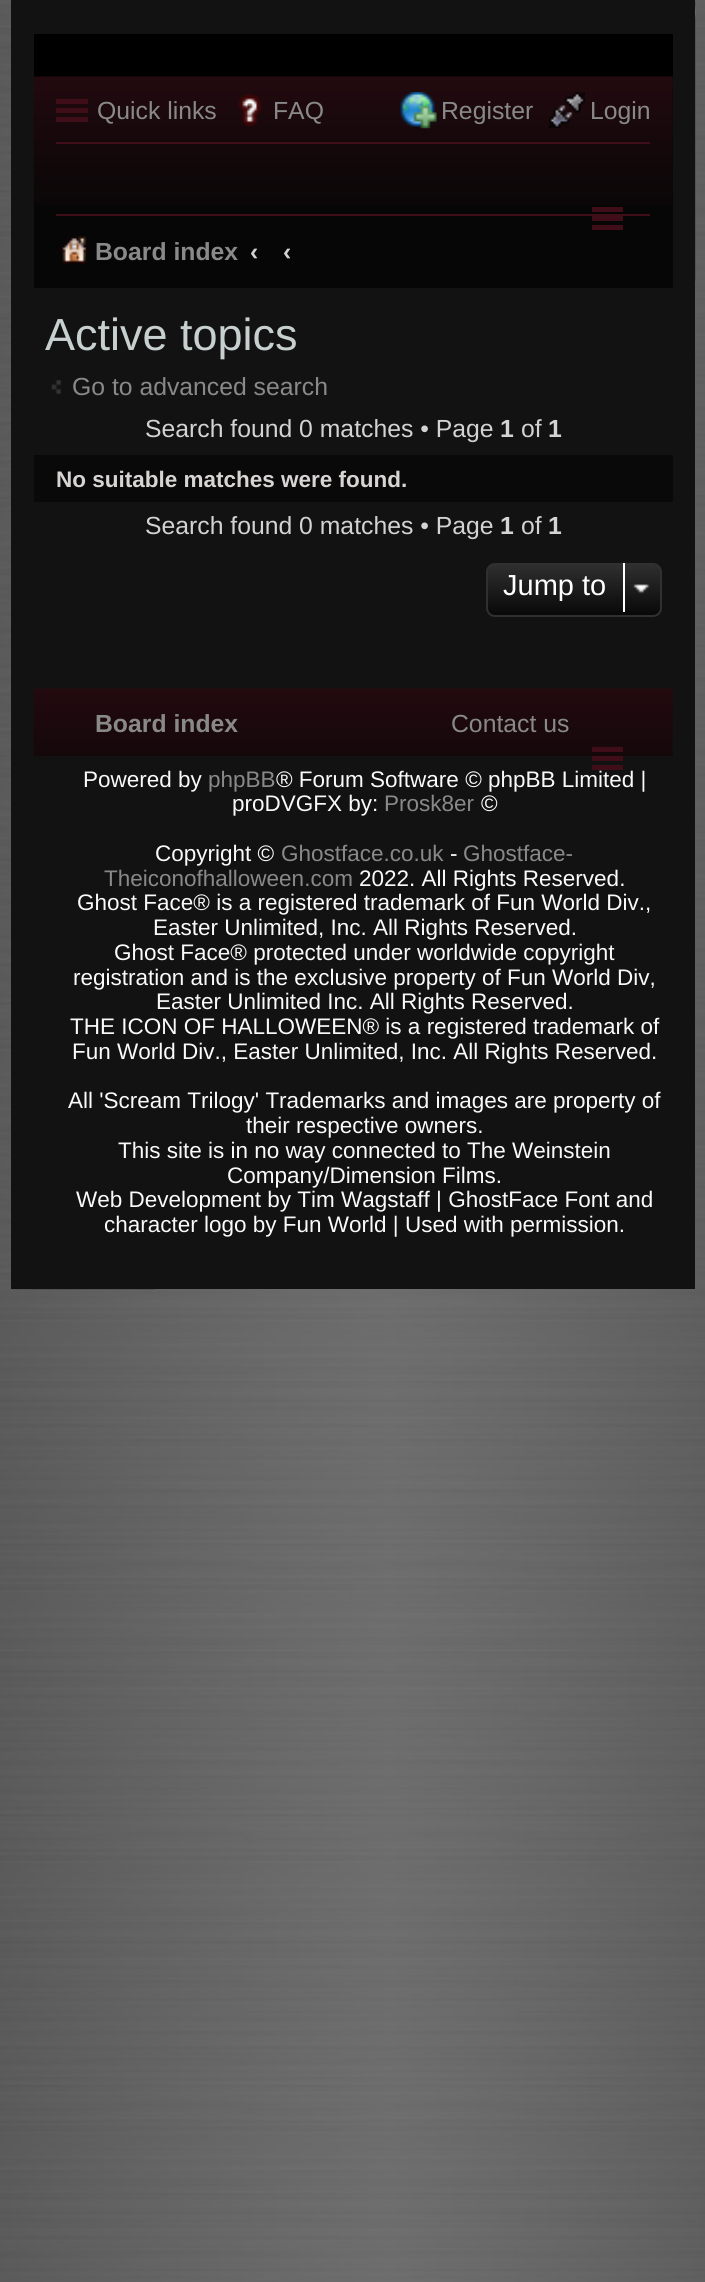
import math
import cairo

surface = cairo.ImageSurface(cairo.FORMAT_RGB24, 705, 2282)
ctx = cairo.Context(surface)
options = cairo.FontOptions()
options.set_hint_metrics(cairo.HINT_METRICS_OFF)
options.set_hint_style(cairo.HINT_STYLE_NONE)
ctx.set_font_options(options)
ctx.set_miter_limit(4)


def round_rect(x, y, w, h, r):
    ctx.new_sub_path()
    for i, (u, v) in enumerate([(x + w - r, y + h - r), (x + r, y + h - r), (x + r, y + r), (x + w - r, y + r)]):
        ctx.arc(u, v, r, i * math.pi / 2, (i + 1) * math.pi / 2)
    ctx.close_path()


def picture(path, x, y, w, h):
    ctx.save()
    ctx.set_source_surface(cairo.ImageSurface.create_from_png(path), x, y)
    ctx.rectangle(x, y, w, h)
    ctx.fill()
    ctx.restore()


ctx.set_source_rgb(1, 1, 1)
ctx.paint()
picture("img1.png", 0, 0, 705, 2282)
picture("img2.png", 12, 1289, 143, 1)
picture("img3.png", 695, 1, 1, 280)
ctx.set_source_rgb(0.071, 0.071, 0.071)
ctx.rectangle(11, 0, 684, 1289)
ctx.fill()
ctx.set_source_rgb(0, 0, 0)
ctx.rectangle(34, 34, 639, 43)
ctx.fill()
ctx.set_source_rgb(0.024, 0.024, 0.024)
ctx.rectangle(34, 77, 639, 211)
ctx.fill()
picture("img4.png", 33, 76, 640, 129)
ctx.set_source_rgb(0.251, 0.055, 0.094)
ctx.rectangle(56, 99, 32, 5)
ctx.fill()
ctx.rectangle(56, 108, 32, 5)
ctx.fill()
ctx.rectangle(56, 117, 32, 5)
ctx.fill()
ctx.select_font_face("Liberation Sans")
ctx.set_font_size(24.75)
ctx.set_source_rgb(0.537, 0.537, 0.537)
ctx.move_to(97, 119)
ctx.show_text("Quick links")
picture("img5.png", 238, 94, 24, 33)
ctx.move_to(273, 119)
ctx.show_text("FAQ")
picture("img6.png", 400, 92, 37, 37)
ctx.move_to(441, 119)
ctx.show_text("Register")
picture("img7.png", 549, 92, 36, 37)
ctx.move_to(590, 119)
ctx.show_text("Login")
ctx.set_source_rgb(0.251, 0.055, 0.094)
ctx.rectangle(56, 142, 594, 2)
ctx.fill()
ctx.rectangle(592, 207, 31, 5)
ctx.fill()
ctx.rectangle(592, 216, 31, 5)
ctx.fill()
ctx.rectangle(592, 225, 31, 5)
ctx.fill()
ctx.rectangle(56, 214, 594, 2)
ctx.fill()
picture("img8.png", 59, 236, 31, 28)
ctx.select_font_face("Liberation Sans", cairo.FONT_SLANT_NORMAL, cairo.FONT_WEIGHT_BOLD)
ctx.set_source_rgb(0.537, 0.537, 0.537)
ctx.move_to(95, 260)
ctx.show_text("Board index")
ctx.set_source_rgb(0.827, 0.827, 0.827)
ctx.move_to(250, 260)
ctx.show_text("‹")
ctx.move_to(283, 260)
ctx.show_text("‹")
ctx.select_font_face("Liberation Sans")
ctx.set_font_size(45)
ctx.set_source_rgb(0.78, 0.812, 0.812)
ctx.move_to(45, 350)
ctx.show_text("Active topics")
picture("img9.png", 51, 380, 10, 14)
ctx.set_font_size(24.75)
ctx.set_source_rgb(0.537, 0.537, 0.537)
ctx.move_to(72, 395)
ctx.show_text("Go to advanced search")
ctx.set_source_rgb(0.827, 0.827, 0.827)
ctx.move_to(145, 437)
ctx.show_text("Search found 0 matches • Page")
ctx.select_font_face("Liberation Sans", cairo.FONT_SLANT_NORMAL, cairo.FONT_WEIGHT_BOLD)
ctx.move_to(500, 437)
ctx.show_text("1")
ctx.select_font_face("Liberation Sans")
ctx.move_to(521, 437)
ctx.show_text("of")
ctx.select_font_face("Liberation Sans", cairo.FONT_SLANT_NORMAL, cairo.FONT_WEIGHT_BOLD)
ctx.move_to(548, 437)
ctx.show_text("1")
ctx.set_source_rgb(0.039, 0.039, 0.039)
ctx.rectangle(34, 455, 639, 47)
ctx.fill()
ctx.set_font_size(22.5)
ctx.set_source_rgb(0.851, 0.831, 0.831)
ctx.move_to(56, 487)
ctx.show_text("No suitable matches were found.")
ctx.select_font_face("Liberation Sans")
ctx.set_font_size(24.75)
ctx.set_source_rgb(0.827, 0.827, 0.827)
ctx.move_to(145, 534)
ctx.show_text("Search found 0 matches • Page")
ctx.select_font_face("Liberation Sans", cairo.FONT_SLANT_NORMAL, cairo.FONT_WEIGHT_BOLD)
ctx.move_to(500, 534)
ctx.show_text("1")
ctx.select_font_face("Liberation Sans")
ctx.move_to(521, 534)
ctx.show_text("of")
ctx.select_font_face("Liberation Sans", cairo.FONT_SLANT_NORMAL, cairo.FONT_WEIGHT_BOLD)
ctx.move_to(548, 534)
ctx.show_text("1")
gradient = cairo.LinearGradient(574, 563, 574, 617)
gradient.add_color_stop_rgba(0, 0.188, 0.188, 0.188, 1)
gradient.add_color_stop_rgba(1, 0.027, 0.027, 0.027, 1)
ctx.set_source(gradient)
round_rect(487, 564, 174, 52, 8)
ctx.fill_preserve()
ctx.set_source_rgb(0.188, 0.188, 0.188)
ctx.stroke()
ctx.select_font_face("Liberation Sans")
ctx.set_font_size(29)
ctx.set_source_rgb(1, 1, 1)
ctx.move_to(503, 595)
ctx.show_text("Jump to")
picture("img10.png", 632, 584, 18, 10)
ctx.rectangle(623, 563, 2, 49)
ctx.fill()
picture("img11.png", 33, 688, 640, 68)
ctx.select_font_face("Liberation Sans", cairo.FONT_SLANT_NORMAL, cairo.FONT_WEIGHT_BOLD)
ctx.set_font_size(24.75)
ctx.set_source_rgb(0.537, 0.537, 0.537)
ctx.move_to(95, 732)
ctx.show_text("Board index")
ctx.select_font_face("Liberation Sans")
ctx.move_to(451, 732)
ctx.show_text("Contact us")
ctx.set_source_rgb(0.251, 0.055, 0.094)
ctx.rectangle(592, 747, 31, 5)
ctx.fill()
ctx.rectangle(592, 756, 31, 5)
ctx.fill()
ctx.rectangle(592, 765, 31, 5)
ctx.fill()
ctx.set_font_size(22.5)
ctx.set_source_rgb(0.976, 0.98, 0.976)
ctx.move_to(83, 787)
ctx.show_text("Powered by")
ctx.set_source_rgb(0.537, 0.537, 0.537)
ctx.move_to(208, 787)
ctx.show_text("phpBB")
ctx.set_source_rgb(0.976, 0.98, 0.976)
ctx.move_to(276, 787)
ctx.show_text("® Forum Software © phpBB Limited |")
ctx.move_to(232, 811)
ctx.show_text("proDVGFX by:")
ctx.set_source_rgb(0.537, 0.537, 0.537)
ctx.move_to(384, 811)
ctx.show_text("Prosk8er")
ctx.set_source_rgb(0.976, 0.98, 0.976)
ctx.move_to(481, 811)
ctx.show_text("©")
ctx.move_to(155, 861)
ctx.show_text("Copyright ©")
ctx.set_source_rgb(0.537, 0.537, 0.537)
ctx.move_to(281, 861)
ctx.show_text("Ghostface.co.uk")
ctx.set_source_rgb(0.976, 0.98, 0.976)
ctx.move_to(450, 861)
ctx.show_text("-")
ctx.set_source_rgb(0.537, 0.537, 0.537)
ctx.move_to(463, 861)
ctx.show_text("Ghostface-")
ctx.move_to(104, 886)
ctx.show_text("Theiconofhalloween.com")
ctx.set_source_rgb(0.976, 0.98, 0.976)
ctx.move_to(359, 886)
ctx.show_text("2022. All Rights Reserved.")
ctx.move_to(77, 910)
ctx.show_text("Ghost Face® is a registered trademark of Fun World Div.,")
ctx.move_to(153, 935)
ctx.show_text("Easter Unlimited, Inc. All Rights Reserved.")
ctx.move_to(114, 960)
ctx.show_text("Ghost Face® protected under worldwide copyright")
ctx.move_to(73, 985)
ctx.show_text("registration and is the exclusive property of Fun World Div,")
ctx.move_to(156, 1009)
ctx.show_text("Easter Unlimited Inc. All Rights Reserved.")
ctx.move_to(70, 1034)
ctx.show_text("THE ICON OF HALLOWEEN® is a registered trademark of")
ctx.move_to(72, 1059)
ctx.show_text("Fun World Div., Easter Unlimited, Inc. All Rights Reserved.")
ctx.move_to(68, 1108)
ctx.show_text("All 'Scream Trilogy' Trademarks and images are property of")
ctx.move_to(246, 1133)
ctx.show_text("their respective owners.")
ctx.move_to(118, 1158)
ctx.show_text("This site is in no way connected to The Weinstein")
ctx.move_to(227, 1183)
ctx.show_text("Company/Dimension Films.")
ctx.move_to(76, 1207)
ctx.show_text("Web Development by Tim Wagstaff | GhostFace Font and")
ctx.move_to(104, 1232)
ctx.show_text("character logo by Fun World | Used with permission.")
surface.write_to_png("page.png")
